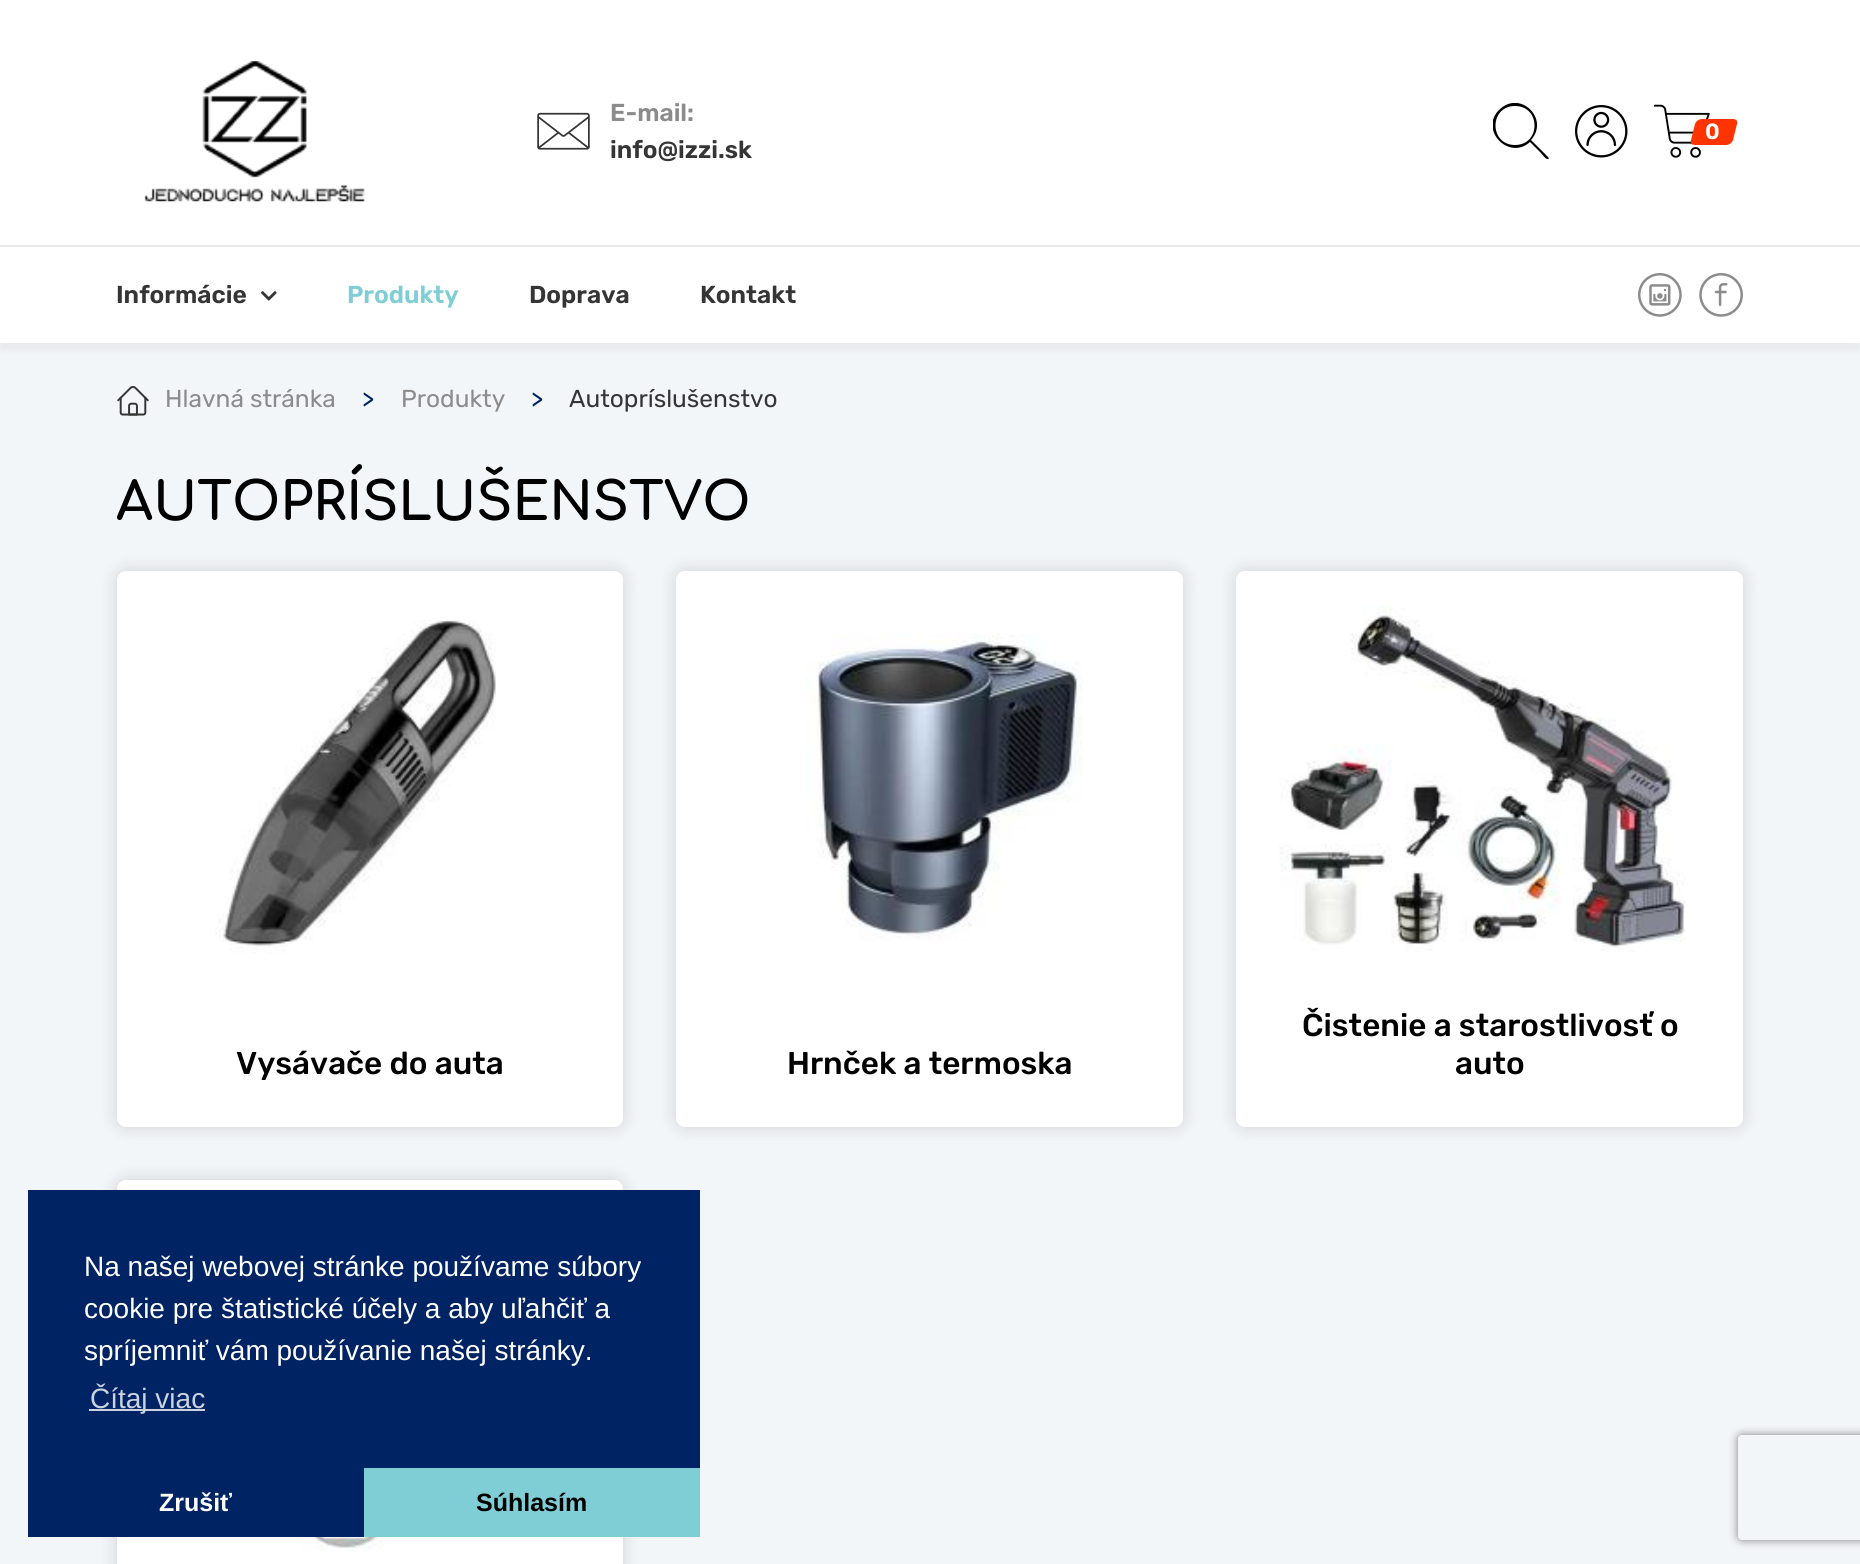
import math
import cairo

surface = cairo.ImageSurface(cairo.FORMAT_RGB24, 1860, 1564)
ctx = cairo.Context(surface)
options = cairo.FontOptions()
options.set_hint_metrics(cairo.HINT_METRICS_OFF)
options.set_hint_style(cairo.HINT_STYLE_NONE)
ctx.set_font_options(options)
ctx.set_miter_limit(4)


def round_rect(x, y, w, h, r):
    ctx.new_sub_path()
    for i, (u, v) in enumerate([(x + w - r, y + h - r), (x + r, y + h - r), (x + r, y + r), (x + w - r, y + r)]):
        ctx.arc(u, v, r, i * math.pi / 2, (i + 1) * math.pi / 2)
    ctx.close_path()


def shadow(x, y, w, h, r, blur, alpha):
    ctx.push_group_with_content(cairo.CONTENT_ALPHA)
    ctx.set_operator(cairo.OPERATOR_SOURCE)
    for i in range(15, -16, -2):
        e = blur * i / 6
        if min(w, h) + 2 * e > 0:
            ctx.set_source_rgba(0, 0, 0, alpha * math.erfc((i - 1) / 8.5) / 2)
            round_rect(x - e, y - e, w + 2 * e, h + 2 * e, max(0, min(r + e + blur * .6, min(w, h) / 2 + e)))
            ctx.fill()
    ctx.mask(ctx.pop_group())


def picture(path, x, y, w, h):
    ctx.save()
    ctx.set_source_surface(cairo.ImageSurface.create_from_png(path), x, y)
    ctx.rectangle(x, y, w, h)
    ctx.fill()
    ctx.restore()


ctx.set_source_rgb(0.953, 0.961, 0.973)
ctx.paint()
ctx.set_source_rgb(0, 0, 0)
shadow(0, 7, 1860, 343, 0, 3.5, 0.05)
ctx.set_source_rgb(1, 1, 1)
ctx.rectangle(0, 0, 1860, 343)
ctx.fill()
ctx.set_source_rgb(0.906, 0.91, 0.91)
ctx.rectangle(0, 245, 1860, 2)
ctx.fill()
picture("img1.png", 144, 61, 221, 141)
picture("img2.png", 537, 112, 53, 38)
ctx.select_font_face("Rubik SemiBold")
ctx.set_font_size(24.5)
ctx.set_source_rgb(0.549, 0.549, 0.549)
ctx.move_to(610, 121)
ctx.show_text("E-mail:")
ctx.set_source_rgb(0.208, 0.208, 0.208)
ctx.move_to(610, 158)
ctx.show_text("info@izzi.sk")
ctx.save()
ctx.rectangle(1493, 103, 56, 56)
ctx.clip()
ctx.set_source_rgb(0, 0, 0)
ctx.new_path()
ctx.move_to(1548, 157)
ctx.line_to(1531, 140)
ctx.curve_to(1550, 119, 1520, 89, 1499, 110)
ctx.curve_to(1479, 130, 1509, 161, 1530, 142)
ctx.line_to(1541, 153)
ctx.curve_to(1542, 154, 1546, 160, 1548, 159)
ctx.curve_to(1549, 159, 1549, 158, 1548, 157)
ctx.close_path()
ctx.move_to(1515, 145)
ctx.curve_to(1489, 145, 1489, 106, 1515, 106)
ctx.curve_to(1541, 106, 1541, 145, 1515, 145)
ctx.close_path()
ctx.fill()
ctx.restore()
picture("img3.png", 1575, 105, 53, 53)
picture("img4.png", 1654, 104, 56, 54)
ctx.set_source_rgb(1, 0.204, 0)
ctx.new_path()
ctx.move_to(1702, 119)
ctx.line_to(1733, 119)
ctx.curve_to(1736, 119, 1738, 121, 1737, 124)
ctx.line_to(1733, 140)
ctx.curve_to(1732, 143, 1729, 145, 1726, 145)
ctx.line_to(1695, 145)
ctx.curve_to(1692, 145, 1690, 143, 1691, 140)
ctx.line_to(1695, 124)
ctx.curve_to(1696, 121, 1699, 119, 1702, 119)
ctx.close_path()
ctx.fill()
ctx.set_font_size(22)
ctx.set_source_rgb(1, 1, 1)
ctx.move_to(1705, 139)
ctx.show_text("0")
ctx.set_font_size(24.5)
ctx.set_source_rgb(0.208, 0.208, 0.208)
ctx.move_to(116, 303)
ctx.show_text("Informácie")
picture("img5.png", 261, 291, 16, 10)
ctx.set_source_rgb(0.502, 0.808, 0.835)
ctx.move_to(347, 303)
ctx.show_text("Produkty")
ctx.set_source_rgb(0.208, 0.208, 0.208)
ctx.move_to(529, 303)
ctx.show_text("Doprava")
ctx.move_to(700, 303)
ctx.show_text("Kontakt")
picture("img6.png", 1638, 273, 44, 44)
picture("img7.png", 1699, 273, 44, 44)
picture("img8.png", 117, 386, 32, 30)
ctx.select_font_face("Rubik")
ctx.set_source_rgb(0.549, 0.549, 0.549)
ctx.move_to(165, 407)
ctx.show_text("Hlavná stránka")
ctx.set_source_rgb(0, 0.137, 0.392)
ctx.move_to(362, 407)
ctx.show_text(">")
ctx.set_source_rgb(0.549, 0.549, 0.549)
ctx.move_to(401, 407)
ctx.show_text("Produkty")
ctx.set_source_rgb(0, 0.137, 0.392)
ctx.move_to(531, 407)
ctx.show_text(">")
ctx.set_source_rgb(0.208, 0.208, 0.208)
ctx.move_to(569, 407)
ctx.show_text("Autopríslušenstvo")
ctx.select_font_face("Comfortaa", cairo.FONT_SLANT_NORMAL, cairo.FONT_WEIGHT_BOLD)
ctx.set_font_size(52.5)
ctx.set_source_rgb(0, 0, 0)
ctx.move_to(116, 520)
ctx.show_text("AUTOPRÍSLUŠENSTVO")
ctx.set_source_rgb(0, 0, 0)
shadow(117, 571, 506, 556, 9, 9, 0.15)
ctx.set_source_rgb(1, 1, 1)
round_rect(117, 571, 506, 556, 9)
ctx.fill()
picture("img9.png", 215, 620, 281, 334)
ctx.select_font_face("Rubik Medium")
ctx.set_font_size(31.5)
ctx.set_source_rgb(0, 0, 0)
ctx.move_to(236, 1074)
ctx.show_text("Vysávače do auta")
ctx.set_source_rgb(0, 0, 0)
shadow(676, 571, 507, 556, 9, 9, 0.15)
ctx.set_source_rgb(1, 1, 1)
round_rect(676, 571, 507, 556, 9)
ctx.fill()
picture("img10.png", 804, 633, 279, 308)
ctx.set_source_rgb(0, 0, 0)
ctx.move_to(787, 1074)
ctx.show_text("Hrnček a termoska")
ctx.set_source_rgb(0, 0, 0)
shadow(1236, 571, 507, 556, 9, 9, 0.15)
ctx.set_source_rgb(1, 1, 1)
round_rect(1236, 571, 507, 556, 9)
ctx.fill()
picture("img11.png", 1279, 605, 407, 347)
ctx.set_source_rgb(0, 0, 0)
ctx.move_to(1302, 1036)
ctx.show_text("Čistenie a starostlivosť o")
ctx.move_to(1455, 1074)
ctx.show_text("auto")
ctx.set_source_rgb(0, 0, 0)
shadow(117, 1180, 506, 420, 9, 9, 0.15)
ctx.set_source_rgb(1, 1, 1)
round_rect(117, 1180, 506, 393, 9)
ctx.fill()
picture("img12.png", 175, 1537, 390, 14)
ctx.set_source_rgb(0, 0.137, 0.392)
ctx.rectangle(28, 1190, 672, 347)
ctx.fill()
ctx.select_font_face("Liberation Sans")
ctx.set_font_size(28)
ctx.set_source_rgb(1, 1, 1)
ctx.move_to(84, 1276)
ctx.show_text("Na našej webovej stránke používame súbory")
ctx.move_to(84, 1318)
ctx.show_text("cookie pre štatistické účely a aby uľahčiť a")
ctx.move_to(84, 1360)
ctx.show_text("spríjemniť vám používanie našej stránky.")
ctx.set_source_rgb(0.8, 0.827, 0.878)
ctx.rectangle(89, 1409, 116, 2)
ctx.fill()
ctx.move_to(90, 1408)
ctx.show_text("Čítaj viac")
ctx.select_font_face("Liberation Sans", cairo.FONT_SLANT_NORMAL, cairo.FONT_WEIGHT_BOLD)
ctx.set_font_size(25)
ctx.set_source_rgb(1, 1, 1)
ctx.move_to(159, 1511)
ctx.show_text("Zrušiť")
ctx.set_source_rgb(0.502, 0.808, 0.835)
ctx.rectangle(364, 1468, 336, 69)
ctx.fill()
ctx.set_source_rgb(0, 0, 0)
ctx.move_to(476, 1511)
ctx.show_text("Súhlasím")
ctx.save()
ctx.set_fill_rule(cairo.FILL_RULE_EVEN_ODD)
ctx.new_path()
ctx.move_to(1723, 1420)
ctx.line_to(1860, 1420)
ctx.line_to(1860, 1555)
ctx.line_to(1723, 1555)
ctx.close_path()
ctx.move_to(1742, 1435)
ctx.line_to(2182, 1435)
ctx.curve_to(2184, 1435, 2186, 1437, 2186, 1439)
ctx.line_to(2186, 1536)
ctx.curve_to(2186, 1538, 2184, 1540, 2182, 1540)
ctx.line_to(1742, 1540)
ctx.curve_to(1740, 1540, 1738, 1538, 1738, 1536)
ctx.line_to(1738, 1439)
ctx.curve_to(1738, 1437, 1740, 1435, 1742, 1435)
ctx.close_path()
ctx.clip()
ctx.set_source_rgb(0.502, 0.502, 0.502)
shadow(1738, 1435, 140, 105, 4, 4.5, 1)
ctx.restore()
surface.write_to_png("page.png")
